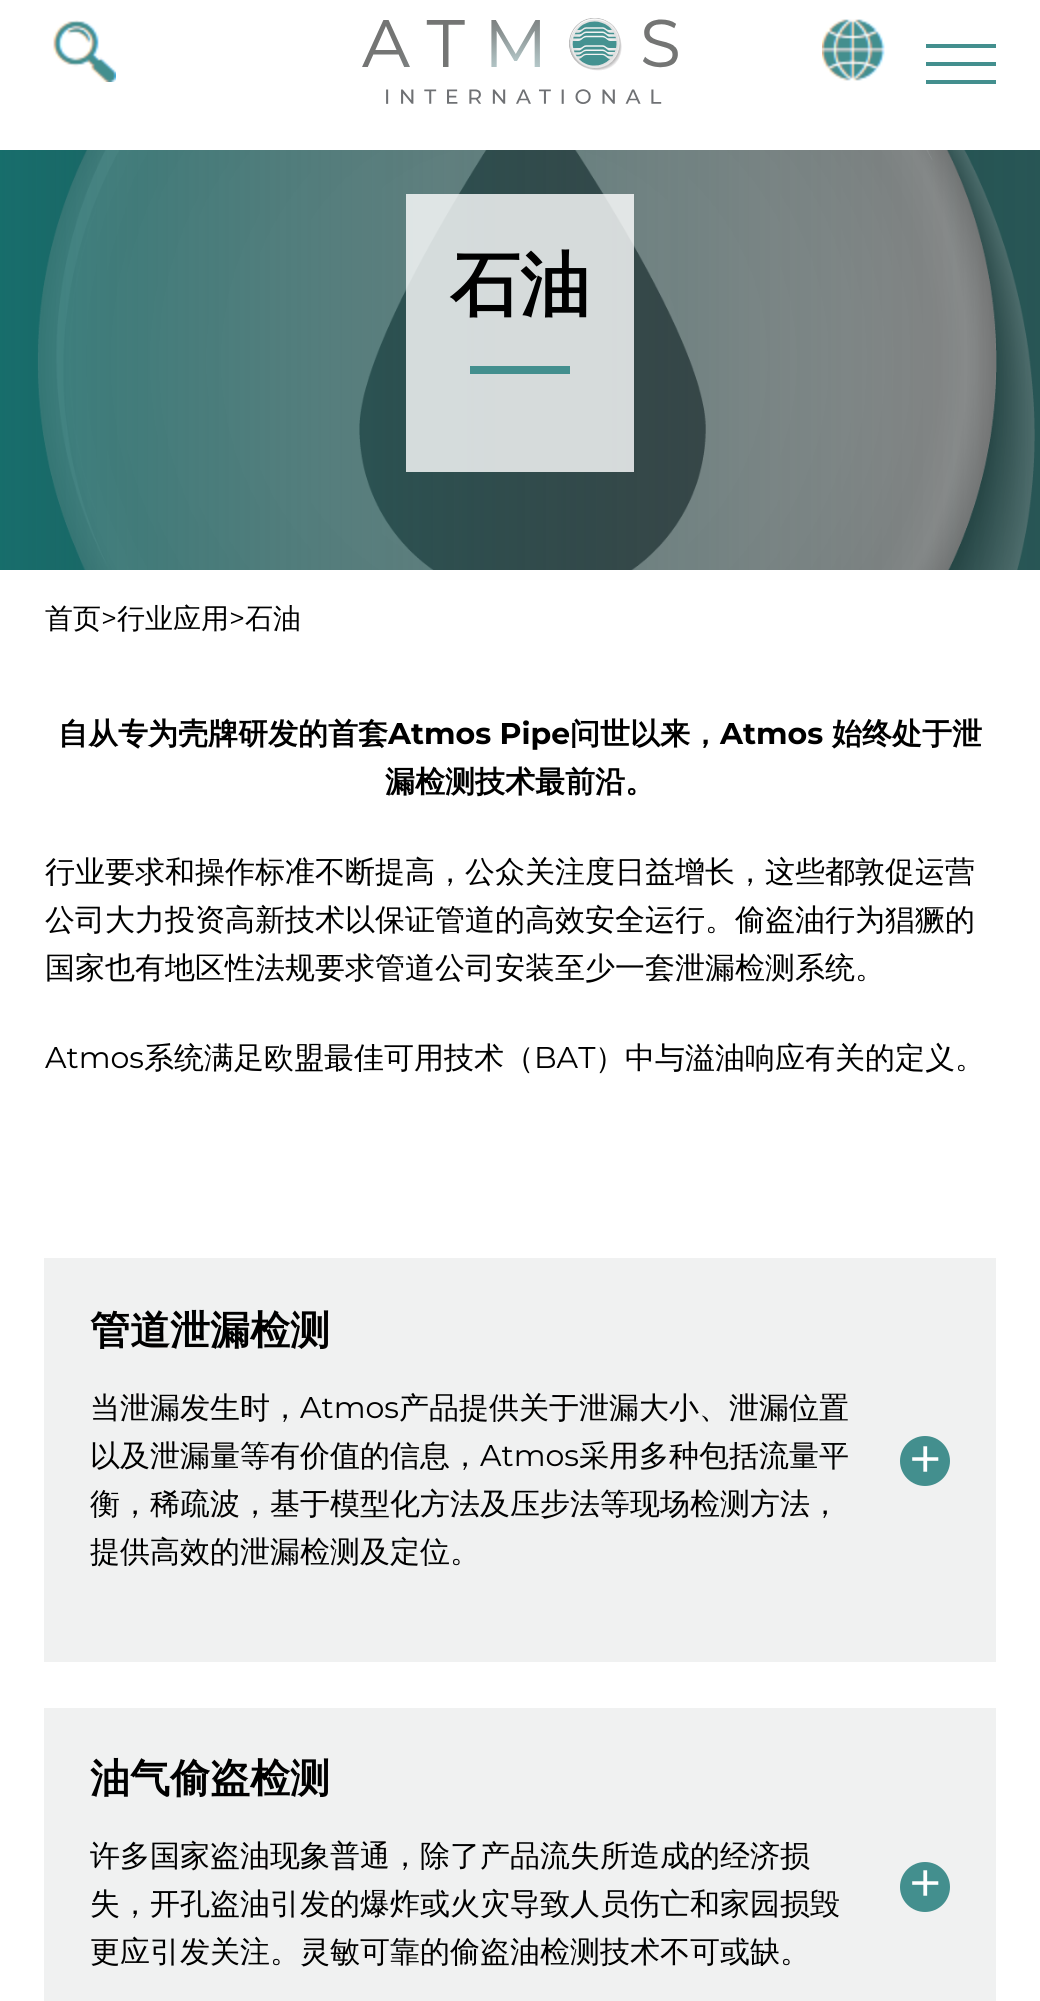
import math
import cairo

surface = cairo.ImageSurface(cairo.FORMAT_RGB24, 1040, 2001)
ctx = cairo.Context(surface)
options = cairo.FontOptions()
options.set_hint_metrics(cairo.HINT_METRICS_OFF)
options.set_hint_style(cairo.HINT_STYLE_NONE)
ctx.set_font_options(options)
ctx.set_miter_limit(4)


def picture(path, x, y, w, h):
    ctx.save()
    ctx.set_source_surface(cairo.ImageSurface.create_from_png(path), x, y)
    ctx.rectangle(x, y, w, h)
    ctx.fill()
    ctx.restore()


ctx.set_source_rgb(1, 1, 1)
ctx.paint()
picture("img1.png", 53, 20, 63, 62)
picture("img2.png", 362, 18, 316, 86)
picture("img3.png", 822, 19, 63, 62)
ctx.set_source_rgb(0.263, 0.561, 0.557)
ctx.rectangle(926, 44, 70, 4)
ctx.fill()
ctx.rectangle(926, 62, 70, 4)
ctx.fill()
ctx.rectangle(926, 80, 70, 4)
ctx.fill()
ctx.rectangle(0, 150, 1040, 420)
ctx.fill()
picture("img4.png", 37, 150, 998, 420)
gradient = cairo.LinearGradient(0, 360, 1040, 360)
gradient.add_color_stop_rgba(0, 0.051, 0.396, 0.388, 0.8)
gradient.add_color_stop_rgba(1, 0, 0, 0, 0.4)
ctx.set_source(gradient)
ctx.rectangle(0, 150, 1040, 420)
ctx.fill()
ctx.set_source_rgba(1, 1, 1, 0.8)
ctx.rectangle(406, 194, 228, 278)
ctx.fill()
ctx.select_font_face("WenQuanYi Zen Hei", cairo.FONT_SLANT_NORMAL, cairo.FONT_WEIGHT_BOLD)
ctx.set_font_size(70)
ctx.set_source_rgb(0, 0, 0)
ctx.move_to(450, 309)
ctx.show_text("石油")
ctx.set_source_rgb(0.263, 0.561, 0.557)
ctx.rectangle(470, 366, 100, 8)
ctx.fill()
ctx.select_font_face("WenQuanYi Zen Hei Medium")
ctx.set_font_size(28)
ctx.set_source_rgb(0, 0, 0)
ctx.move_to(45, 628)
ctx.show_text("首页")
ctx.select_font_face("Montserrat")
ctx.move_to(101, 628)
ctx.show_text(">")
ctx.select_font_face("WenQuanYi Zen Hei Medium")
ctx.move_to(117, 628)
ctx.show_text("行业应用")
ctx.select_font_face("Montserrat")
ctx.move_to(229, 628)
ctx.show_text(">")
ctx.select_font_face("WenQuanYi Zen Hei Medium")
ctx.move_to(245, 628)
ctx.show_text("石油")
ctx.select_font_face("WenQuanYi Zen Hei", cairo.FONT_SLANT_NORMAL, cairo.FONT_WEIGHT_BOLD)
ctx.set_font_size(30)
ctx.move_to(58, 744)
ctx.show_text("自从专为壳牌研发的首套")
ctx.select_font_face("Montserrat", cairo.FONT_SLANT_NORMAL, cairo.FONT_WEIGHT_BOLD)
ctx.move_to(388, 744)
ctx.show_text("Atmos Pipe")
ctx.select_font_face("WenQuanYi Zen Hei", cairo.FONT_SLANT_NORMAL, cairo.FONT_WEIGHT_BOLD)
ctx.move_to(570, 744)
ctx.show_text("问世以来，")
ctx.select_font_face("Montserrat", cairo.FONT_SLANT_NORMAL, cairo.FONT_WEIGHT_BOLD)
ctx.move_to(720, 744)
ctx.show_text("Atmos")
ctx.select_font_face("WenQuanYi Zen Hei", cairo.FONT_SLANT_NORMAL, cairo.FONT_WEIGHT_BOLD)
ctx.move_to(832, 744)
ctx.show_text("始终处于泄")
ctx.move_to(385, 792)
ctx.show_text("漏检测技术最前沿。")
ctx.select_font_face("WenQuanYi Zen Hei Medium")
ctx.move_to(45, 882)
ctx.show_text("行业要求和操作标准不断提高，公众关注度日益增长，这些都敦促运营")
ctx.move_to(45, 930)
ctx.show_text("公司大力投资高新技术以保证管道的高效安全运行。偷盗油行为猖獗的")
ctx.move_to(45, 978)
ctx.show_text("国家也有地区性法规要求管道公司安装至少一套泄漏检测系统。")
ctx.select_font_face("Montserrat")
ctx.move_to(45, 1068)
ctx.show_text("Atmos")
ctx.select_font_face("WenQuanYi Zen Hei Medium")
ctx.move_to(144, 1068)
ctx.show_text("系统满足欧盟最佳可用技术（")
ctx.select_font_face("Montserrat")
ctx.move_to(534, 1068)
ctx.show_text("BAT")
ctx.select_font_face("WenQuanYi Zen Hei Medium")
ctx.move_to(595, 1068)
ctx.show_text("）中与溢油响应有关的定义。")
ctx.set_source_rgb(0.941, 0.945, 0.945)
ctx.rectangle(44, 1258, 952, 404)
ctx.fill()
ctx.select_font_face("WenQuanYi Zen Hei", cairo.FONT_SLANT_NORMAL, cairo.FONT_WEIGHT_BOLD)
ctx.set_font_size(40)
ctx.set_source_rgb(0, 0, 0)
ctx.move_to(90, 1344)
ctx.show_text("管道泄漏检测")
ctx.select_font_face("WenQuanYi Zen Hei Medium")
ctx.set_font_size(30)
ctx.move_to(90, 1418)
ctx.show_text("当泄漏发生时，")
ctx.select_font_face("Montserrat")
ctx.move_to(300, 1418)
ctx.show_text("Atmos")
ctx.select_font_face("WenQuanYi Zen Hei Medium")
ctx.move_to(399, 1418)
ctx.show_text("产品提供关于泄漏大小、泄漏位置")
ctx.move_to(90, 1466)
ctx.show_text("以及泄漏量等有价值的信息，")
ctx.select_font_face("Montserrat")
ctx.move_to(480, 1466)
ctx.show_text("Atmos")
ctx.select_font_face("WenQuanYi Zen Hei Medium")
ctx.move_to(579, 1466)
ctx.show_text("采用多种包括流量平")
ctx.move_to(90, 1514)
ctx.show_text("衡，稀疏波，基于模型化方法及压步法等现场检测方法，")
ctx.move_to(90, 1562)
ctx.show_text("提供高效的泄漏检测及定位。")
ctx.set_source_rgb(0.263, 0.561, 0.557)
ctx.new_path()
ctx.arc(925, 1461, 25, 0, 2 * math.pi)
ctx.fill()
ctx.select_font_face("Montserrat")
ctx.set_font_size(60)
ctx.set_source_rgb(1, 1, 1)
ctx.move_to(908, 1480)
ctx.show_text("+")
ctx.set_source_rgb(0.941, 0.945, 0.945)
ctx.rectangle(44, 1708, 952, 293)
ctx.fill()
ctx.select_font_face("WenQuanYi Zen Hei", cairo.FONT_SLANT_NORMAL, cairo.FONT_WEIGHT_BOLD)
ctx.set_font_size(40)
ctx.set_source_rgb(0, 0, 0)
ctx.move_to(90, 1792)
ctx.show_text("油气偷盗检测")
ctx.select_font_face("WenQuanYi Zen Hei Medium")
ctx.set_font_size(30)
ctx.move_to(90, 1866)
ctx.show_text("许多国家盗油现象普通，除了产品流失所造成的经济损")
ctx.move_to(90, 1914)
ctx.show_text("失，开孔盗油引发的爆炸或火灾导致人员伤亡和家园损毁")
ctx.move_to(90, 1962)
ctx.show_text("更应引发关注。灵敏可靠的偷盗油检测技术不可或缺。")
ctx.set_source_rgb(0.263, 0.561, 0.557)
ctx.new_path()
ctx.arc(925, 1887, 25, 0, 2 * math.pi)
ctx.fill()
ctx.select_font_face("Montserrat")
ctx.set_font_size(60)
ctx.set_source_rgb(1, 1, 1)
ctx.move_to(908, 1904)
ctx.show_text("+")
surface.write_to_png("page.png")
